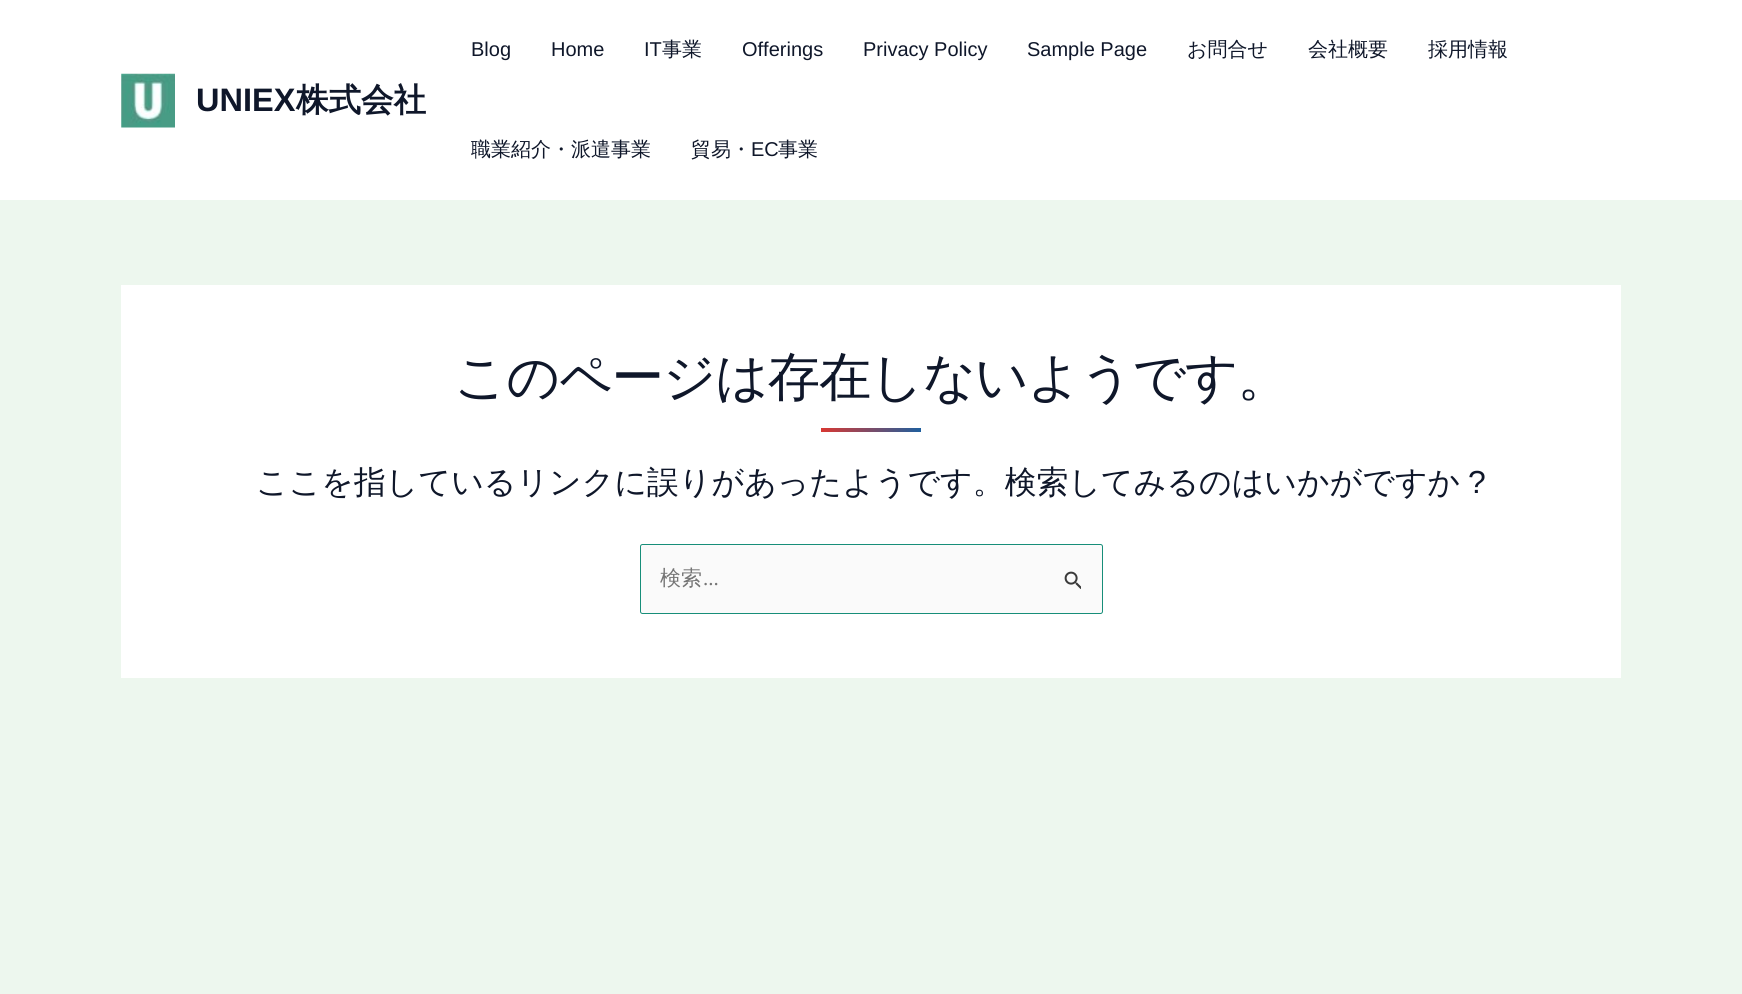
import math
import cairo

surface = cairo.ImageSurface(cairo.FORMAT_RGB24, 1742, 994)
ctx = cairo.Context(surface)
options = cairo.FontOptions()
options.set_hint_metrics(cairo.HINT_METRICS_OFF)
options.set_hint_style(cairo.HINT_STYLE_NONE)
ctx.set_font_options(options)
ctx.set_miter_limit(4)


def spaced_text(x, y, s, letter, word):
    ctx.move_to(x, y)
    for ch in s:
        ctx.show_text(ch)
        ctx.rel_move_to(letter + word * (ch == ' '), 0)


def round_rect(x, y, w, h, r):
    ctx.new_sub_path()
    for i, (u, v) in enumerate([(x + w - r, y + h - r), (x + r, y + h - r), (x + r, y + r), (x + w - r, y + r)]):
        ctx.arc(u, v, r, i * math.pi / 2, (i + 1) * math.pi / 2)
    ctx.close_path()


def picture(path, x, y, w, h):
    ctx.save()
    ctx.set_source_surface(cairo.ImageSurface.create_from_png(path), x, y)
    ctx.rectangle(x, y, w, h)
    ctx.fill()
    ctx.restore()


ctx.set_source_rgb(0.929, 0.965, 0.933)
ctx.paint()
ctx.set_source_rgb(1, 1, 1)
ctx.rectangle(0, 0, 1742, 200)
ctx.fill()
picture("img1.png", 121, 73, 54, 55)
ctx.select_font_face("Liberation Sans", cairo.FONT_SLANT_NORMAL, cairo.FONT_WEIGHT_BOLD)
ctx.set_font_size(32.5)
ctx.set_source_rgb(0.059, 0.09, 0.165)
ctx.move_to(196, 111)
ctx.show_text("UNIEX")
ctx.select_font_face("WenQuanYi Zen Hei", cairo.FONT_SLANT_NORMAL, cairo.FONT_WEIGHT_BOLD)
ctx.move_to(296, 111)
ctx.show_text("株式会社")
ctx.select_font_face("Liberation Sans")
ctx.set_font_size(20)
ctx.move_to(471, 56)
ctx.show_text("Blog")
ctx.move_to(551, 56)
ctx.show_text("Home")
ctx.move_to(644, 56)
ctx.show_text("IT")
ctx.select_font_face("WenQuanYi Zen Hei Medium")
ctx.move_to(662, 56)
ctx.show_text("事業")
ctx.select_font_face("Liberation Sans")
ctx.move_to(742, 56)
ctx.show_text("Offerings")
ctx.move_to(863, 56)
ctx.show_text("Privacy Policy")
ctx.move_to(1027, 56)
ctx.show_text("Sample Page")
ctx.select_font_face("WenQuanYi Zen Hei Medium")
ctx.move_to(1187, 56)
ctx.show_text("お問合せ")
ctx.move_to(1308, 56)
ctx.show_text("会社概要")
ctx.move_to(1428, 56)
ctx.show_text("採用情報")
ctx.move_to(471, 156)
ctx.show_text("職業紹介・派遣事業")
ctx.move_to(691, 156)
ctx.show_text("貿易・")
ctx.select_font_face("Liberation Sans")
ctx.move_to(751, 156)
ctx.show_text("EC")
ctx.select_font_face("WenQuanYi Zen Hei Medium")
ctx.move_to(778, 156)
ctx.show_text("事業")
ctx.set_source_rgb(1, 1, 1)
ctx.rectangle(121, 285, 1500, 393)
ctx.fill()
ctx.set_font_size(52.5)
ctx.set_source_rgb(0.059, 0.09, 0.165)
spaced_text(454, 395, "このページは存在しないようです。", -1.25, 0)
gradient = cairo.LinearGradient(821, 429, 921, 429)
gradient.add_color_stop_rgba(0, 0.851, 0.22, 0.196, 1)
gradient.add_color_stop_rgba(1, 0.118, 0.373, 0.62, 1)
ctx.set_source(gradient)
ctx.rectangle(821, 428, 100, 4)
ctx.fill()
ctx.set_font_size(31.9)
ctx.set_source_rgb(0.059, 0.09, 0.165)
ctx.move_to(256, 493)
ctx.show_text("ここを指しているリンクに誤りがあったようです。検索してみるのはいかがですか")
ctx.select_font_face("Liberation Sans")
ctx.move_to(1468, 493)
ctx.show_text("?")
ctx.set_source_rgb(0.98, 0.98, 0.98)
round_rect(640.5, 544.5, 462, 69, 2)
ctx.fill_preserve()
ctx.set_source_rgb(0.09, 0.557, 0.475)
ctx.set_line_width(1)
ctx.stroke()
ctx.select_font_face("WenQuanYi Zen Hei Medium")
ctx.set_font_size(21)
ctx.set_source_rgb(0.459, 0.459, 0.459)
ctx.move_to(660, 585)
ctx.show_text("検索")
ctx.select_font_face("Liberation Serif")
ctx.move_to(703, 585)
ctx.show_text("...")
picture("img2.png", 1064, 571, 17, 18)
surface.write_to_png("page.png")
